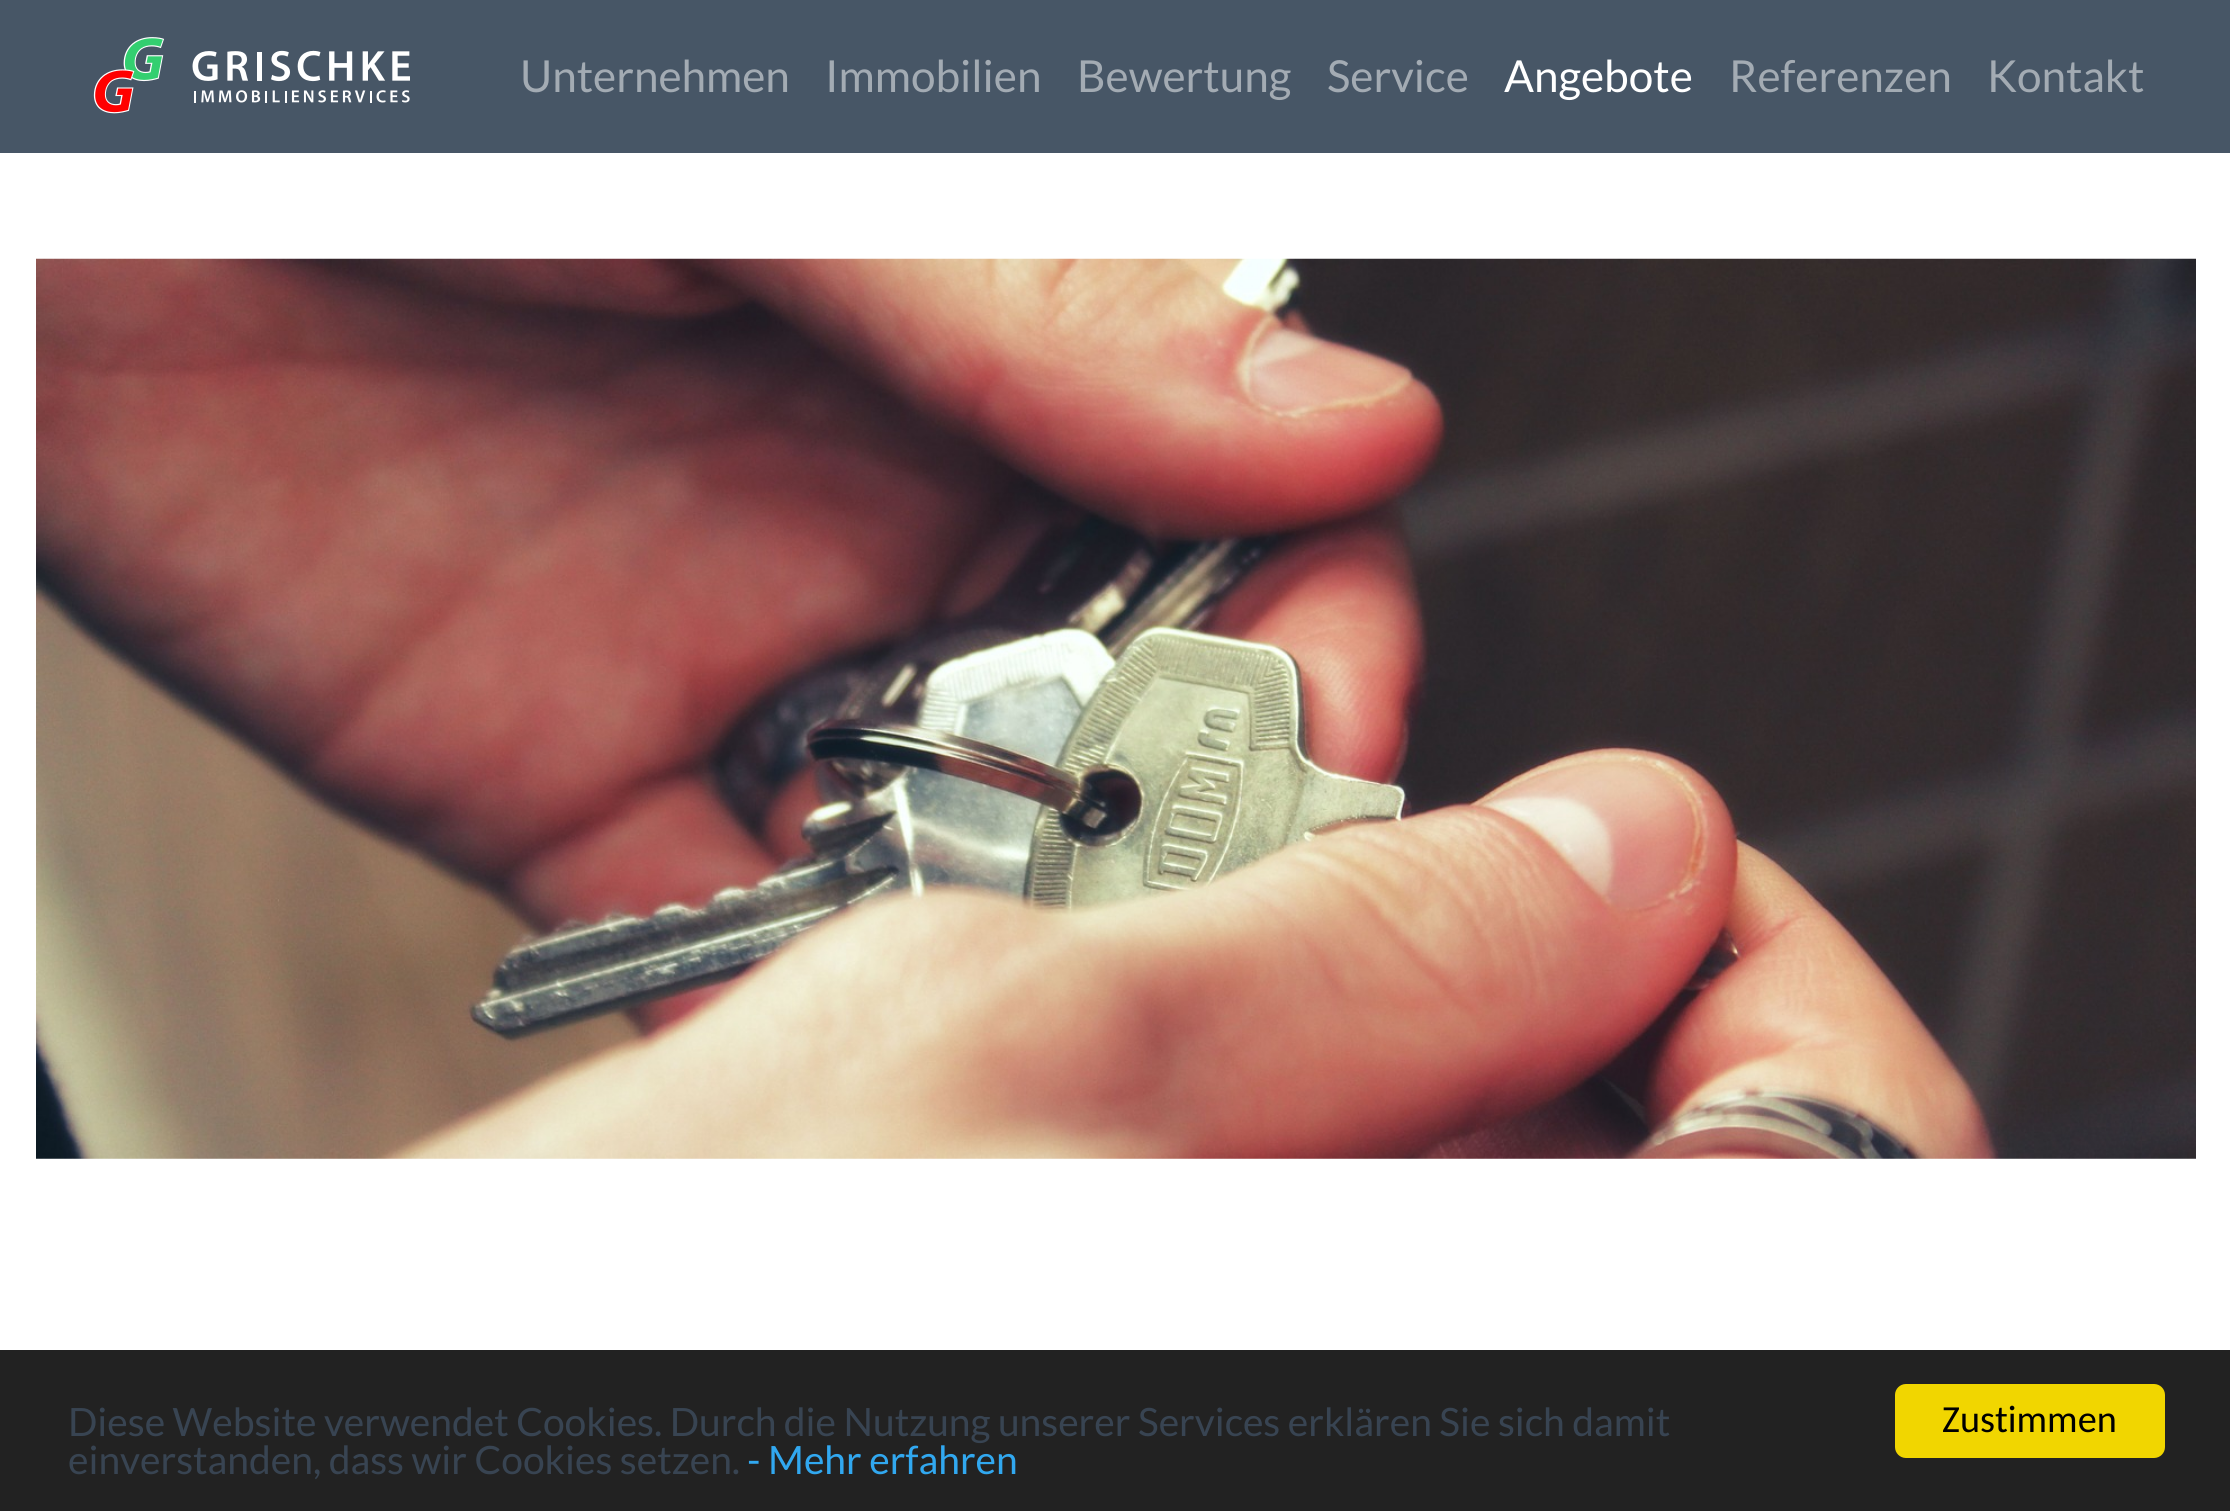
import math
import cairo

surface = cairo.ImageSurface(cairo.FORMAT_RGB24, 2230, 1511)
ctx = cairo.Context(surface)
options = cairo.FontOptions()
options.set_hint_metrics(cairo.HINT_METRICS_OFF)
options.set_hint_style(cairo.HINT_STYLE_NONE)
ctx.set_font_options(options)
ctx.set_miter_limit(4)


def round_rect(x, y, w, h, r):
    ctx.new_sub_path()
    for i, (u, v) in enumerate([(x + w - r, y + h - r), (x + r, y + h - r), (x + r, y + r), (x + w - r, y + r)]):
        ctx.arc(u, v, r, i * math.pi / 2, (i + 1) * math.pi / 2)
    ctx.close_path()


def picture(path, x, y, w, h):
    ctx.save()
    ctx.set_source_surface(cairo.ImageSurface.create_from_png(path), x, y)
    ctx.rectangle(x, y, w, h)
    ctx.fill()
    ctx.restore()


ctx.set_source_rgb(1, 1, 1)
ctx.paint()
ctx.set_source_rgb(0.278, 0.337, 0.4)
ctx.rectangle(0, 0, 2230, 153)
ctx.fill()
picture("img1.png", 93, 37, 317, 77)
ctx.select_font_face("Lato")
ctx.set_font_size(43.25)
ctx.set_source_rgb(0.639, 0.671, 0.702)
ctx.move_to(520, 92)
ctx.show_text("Unternehmen")
ctx.move_to(825, 92)
ctx.show_text("Immobilien")
ctx.move_to(1077, 92)
ctx.show_text("Bewertung")
ctx.move_to(1327, 92)
ctx.show_text("Service")
ctx.set_source_rgb(1, 1, 1)
ctx.move_to(1504, 92)
ctx.show_text("Angebote")
ctx.set_source_rgb(0.639, 0.671, 0.702)
ctx.move_to(1729, 92)
ctx.show_text("Referenzen")
ctx.move_to(1987, 92)
ctx.show_text("Kontakt")
picture("img2.png", 36, 258, 2160, 901)
ctx.set_source_rgb(0.133, 0.133, 0.133)
ctx.rectangle(0, 1350, 2230, 161)
ctx.fill()
ctx.set_font_size(38.25)
ctx.set_source_rgb(0.22, 0.267, 0.322)
ctx.move_to(68, 1436)
ctx.show_text("Diese Website verwendet Cookies. Durch die Nutzung unserer Services erklären Sie sich damit")
ctx.move_to(68, 1474)
ctx.show_text("einverstanden, dass wir Cookies setzen.")
ctx.set_source_rgb(0.192, 0.659, 0.941)
ctx.move_to(747, 1474)
ctx.show_text("- Mehr erfahren")
ctx.set_source_rgb(0.945, 0.839, 0)
round_rect(1895, 1384, 270, 74, 11)
ctx.fill()
ctx.select_font_face("Carlito")
ctx.set_source_rgb(0, 0, 0)
ctx.move_to(1942, 1432)
ctx.show_text("Zustimmen")
surface.write_to_png("page.png")
